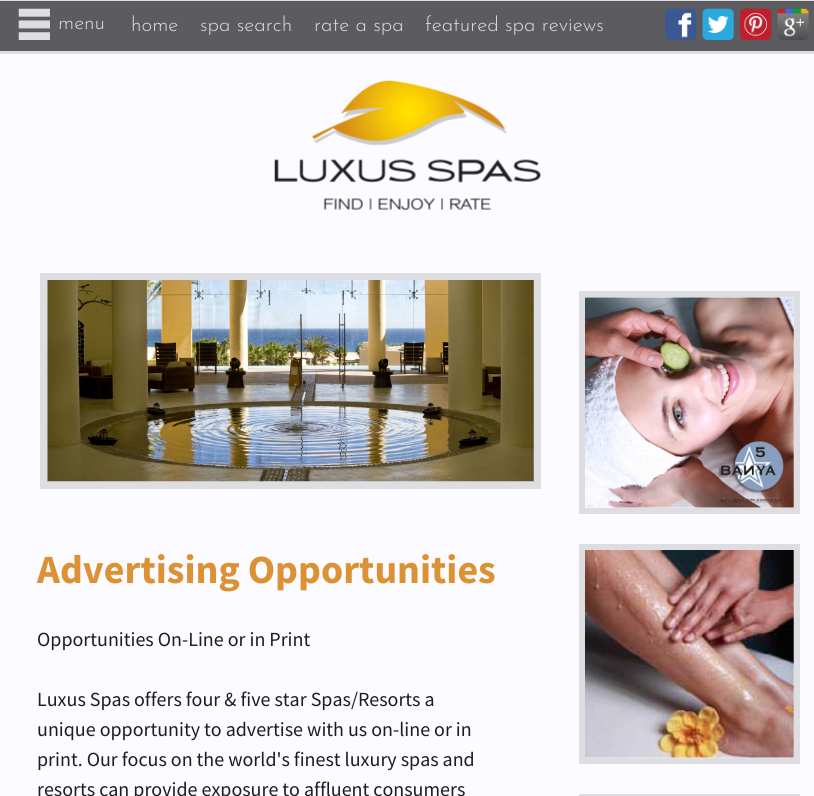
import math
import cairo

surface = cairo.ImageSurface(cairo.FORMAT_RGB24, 814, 796)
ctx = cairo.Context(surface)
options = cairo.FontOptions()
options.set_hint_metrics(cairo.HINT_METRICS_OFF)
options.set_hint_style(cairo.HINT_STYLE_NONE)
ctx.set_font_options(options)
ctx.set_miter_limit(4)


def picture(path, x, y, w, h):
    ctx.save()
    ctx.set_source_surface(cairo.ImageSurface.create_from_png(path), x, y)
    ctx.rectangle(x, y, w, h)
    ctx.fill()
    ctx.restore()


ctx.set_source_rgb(0.988, 0.984, 1)
ctx.paint()
ctx.set_source_rgb(0.361, 0.357, 0.373)
ctx.rectangle(0, 1, 814, 50)
ctx.fill()
ctx.set_source_rgb(0.871, 0.867, 0.882)
ctx.rectangle(0, 0, 814, 1)
ctx.fill()
ctx.rectangle(0, 51, 814, 3)
ctx.fill()
picture("img1.png", 18, 8, 32, 32)
ctx.select_font_face("Josefin Sans Light")
ctx.set_font_size(20.5)
ctx.move_to(58, 29)
ctx.show_text("menu")
ctx.move_to(131, 31)
ctx.show_text("home")
ctx.move_to(200, 31)
ctx.show_text("spa search")
ctx.move_to(314, 31)
ctx.show_text("rate a spa")
ctx.move_to(425, 31)
ctx.show_text("featured spa reviews")
picture("img2.png", 665, 8, 32, 32)
picture("img3.png", 702, 8, 32, 32)
picture("img4.png", 740, 8, 32, 32)
picture("img5.png", 777, 8, 32, 32)
picture("img6.png", 274, 80, 267, 130)
ctx.rectangle(44, 277, 493, 208)
ctx.set_line_width(8)
ctx.stroke()
picture("img7.png", 47, 280, 487, 202)
ctx.select_font_face("Source Sans Pro", cairo.FONT_SLANT_NORMAL, cairo.FONT_WEIGHT_BOLD)
ctx.set_font_size(40)
ctx.set_source_rgb(0.859, 0.569, 0.204)
ctx.move_to(37, 583)
ctx.show_text("Advertising Opportunities")
ctx.select_font_face("Source Sans Pro")
ctx.set_font_size(20)
ctx.set_source_rgb(0.114, 0.114, 0.122)
ctx.move_to(37, 646)
ctx.show_text("Opportunities On-Line or in Print")
ctx.move_to(37, 706)
ctx.show_text("Luxus Spas offers four & five star Spas/Resorts a")
ctx.move_to(37, 736)
ctx.show_text("unique opportunity to advertise with us on-line or in")
ctx.move_to(37, 766)
ctx.show_text("print. Our focus on the world's finest luxury spas and")
ctx.move_to(37, 796)
ctx.show_text("resorts can provide exposure to affluent consumers")
ctx.rectangle(582, 294, 215, 217)
ctx.set_source_rgb(0.871, 0.867, 0.882)
ctx.set_line_width(6)
ctx.stroke()
picture("img8.png", 585, 297, 209, 211)
ctx.rectangle(582, 547, 215, 214)
ctx.stroke()
picture("img9.png", 585, 550, 209, 208)
ctx.rectangle(582, 797, 215, 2)
ctx.stroke()
surface.write_to_png("page.png")
